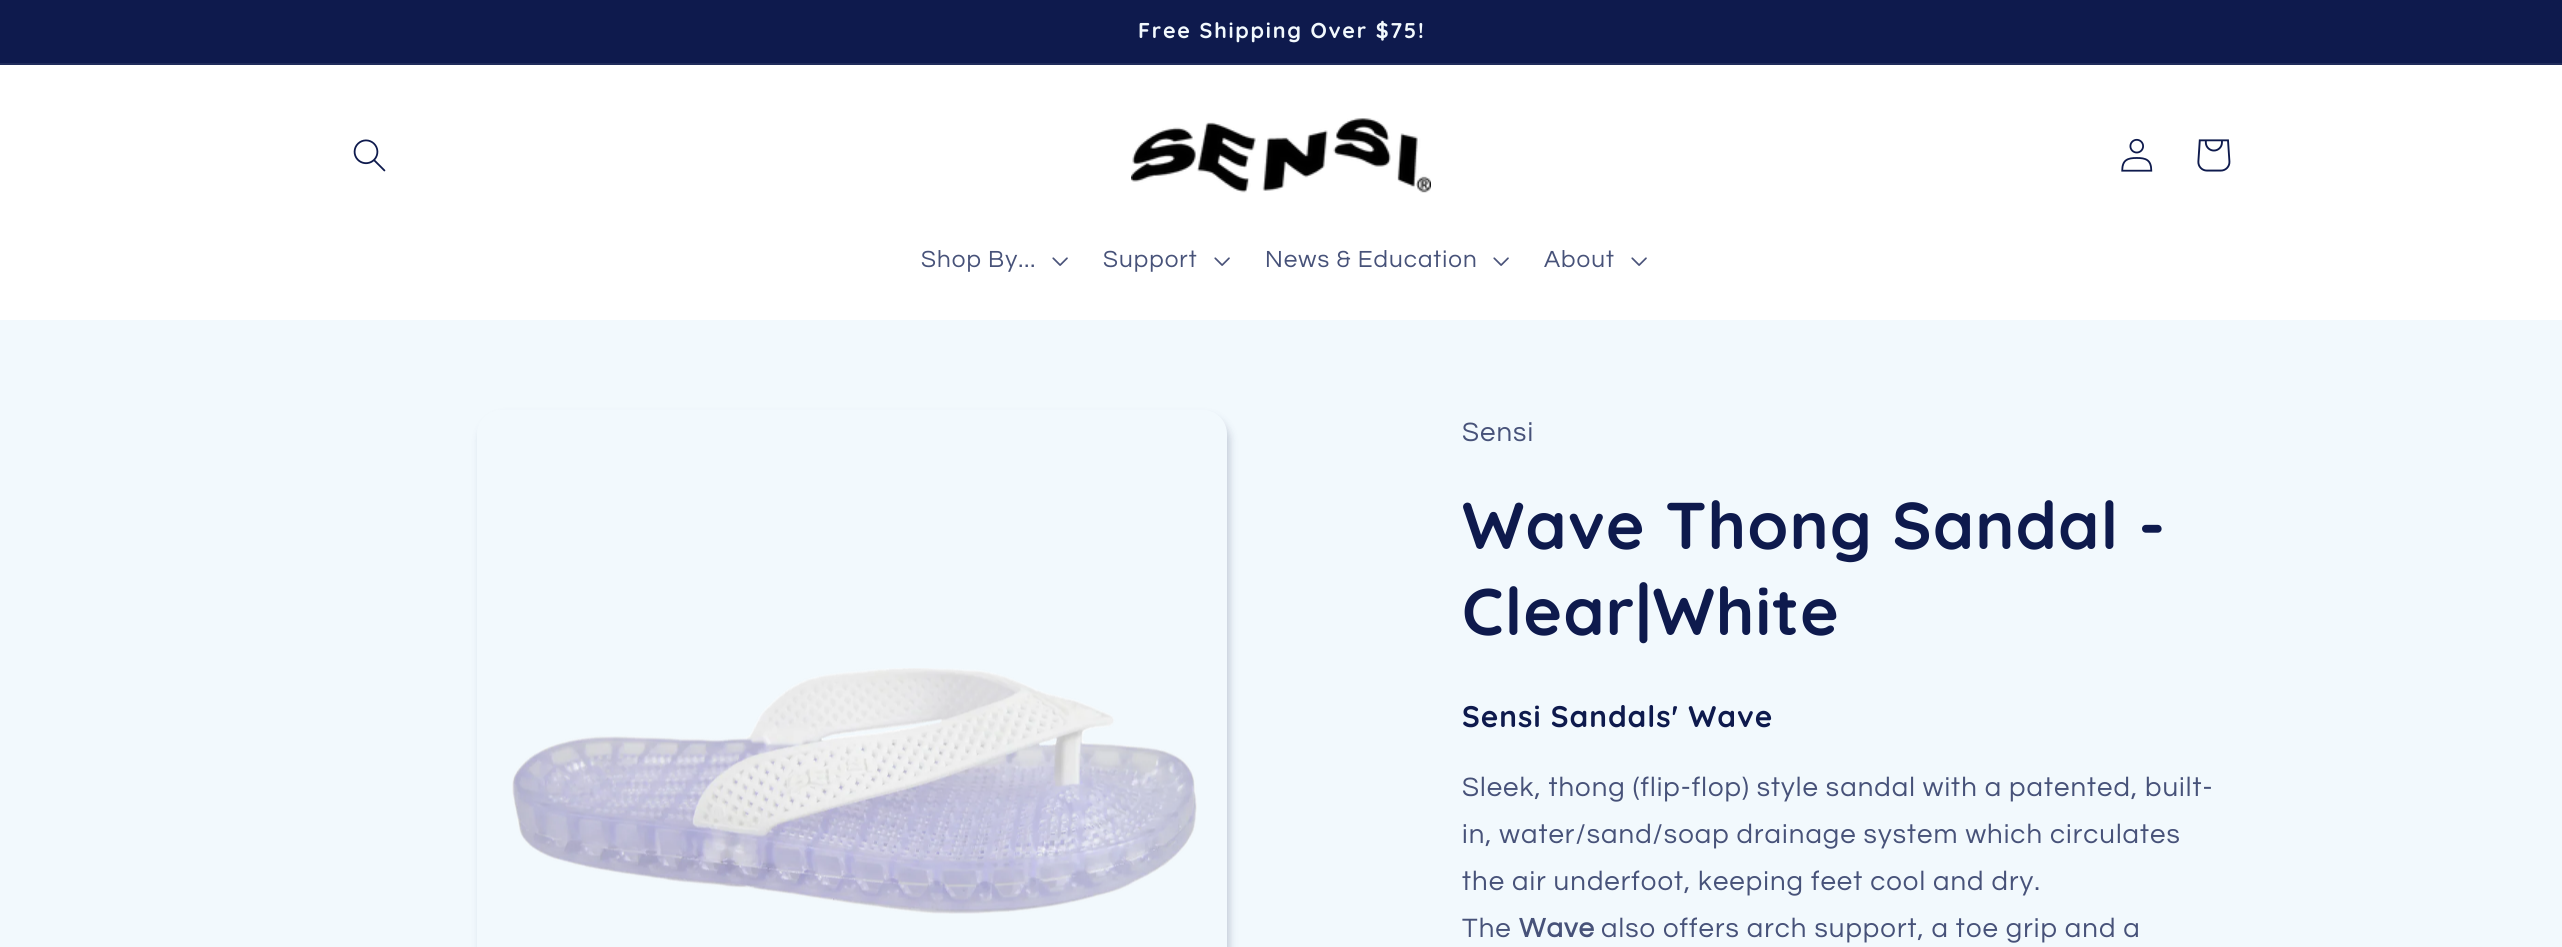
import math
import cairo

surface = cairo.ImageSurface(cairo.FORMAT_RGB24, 2562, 947)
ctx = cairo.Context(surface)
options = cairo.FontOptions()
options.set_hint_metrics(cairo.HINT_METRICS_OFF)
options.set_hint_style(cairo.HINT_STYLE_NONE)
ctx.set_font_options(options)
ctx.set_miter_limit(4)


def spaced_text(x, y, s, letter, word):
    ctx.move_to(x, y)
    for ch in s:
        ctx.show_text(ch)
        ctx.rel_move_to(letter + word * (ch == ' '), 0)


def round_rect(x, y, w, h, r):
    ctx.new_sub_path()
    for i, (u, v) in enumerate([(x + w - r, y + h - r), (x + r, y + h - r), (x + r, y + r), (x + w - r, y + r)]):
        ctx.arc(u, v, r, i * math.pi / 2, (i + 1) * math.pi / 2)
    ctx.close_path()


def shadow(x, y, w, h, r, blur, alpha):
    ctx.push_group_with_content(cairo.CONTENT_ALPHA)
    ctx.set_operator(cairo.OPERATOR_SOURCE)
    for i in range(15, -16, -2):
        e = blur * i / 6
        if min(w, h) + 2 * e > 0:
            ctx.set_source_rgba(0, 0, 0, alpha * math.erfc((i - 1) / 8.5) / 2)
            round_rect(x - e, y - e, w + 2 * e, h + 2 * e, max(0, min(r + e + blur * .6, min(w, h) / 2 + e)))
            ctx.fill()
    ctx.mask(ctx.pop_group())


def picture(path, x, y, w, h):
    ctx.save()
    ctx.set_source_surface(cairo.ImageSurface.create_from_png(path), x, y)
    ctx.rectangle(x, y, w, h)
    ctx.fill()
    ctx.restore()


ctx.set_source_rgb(0.949, 0.973, 0.992)
ctx.paint()
ctx.set_source_rgb(0.055, 0.102, 0.302)
ctx.rectangle(0, 0, 2562, 63)
ctx.fill()
ctx.set_source_rgb(0.125, 0.173, 0.357)
ctx.rectangle(0, 63, 2562, 2)
ctx.fill()
ctx.select_font_face("Quicksand", cairo.FONT_SLANT_NORMAL, cairo.FONT_WEIGHT_BOLD)
ctx.set_font_size(21.5)
ctx.set_source_rgb(0.949, 0.973, 0.992)
spaced_text(1138, 38, "Free Shipping Over $75!", 1.75, 0)
ctx.set_source_rgb(1, 1, 1)
ctx.rectangle(0, 65, 2562, 255)
ctx.fill()
picture("img1.png", 353, 139, 33, 33)
picture("img2.png", 1131, 118, 300, 75)
picture("img3.png", 2121, 138, 32, 34)
picture("img4.png", 2197, 139, 34, 33)
ctx.select_font_face("Questrial")
ctx.set_font_size(24.25)
ctx.set_source_rgb(0.278, 0.322, 0.475)
spaced_text(921, 267, "Shop By...", 1.03, 0)
picture("img5.png", 1052, 257, 16, 9)
spaced_text(1103, 267, "Support", 1.03, 0)
picture("img5.png", 1214, 257, 16, 9)
spaced_text(1265, 267, "News & Education", 1.03, 0)
picture("img5.png", 1493, 257, 16, 9)
spaced_text(1544, 267, "About", 1.03, 0)
picture("img5.png", 1631, 257, 16, 9)
ctx.set_source_rgb(0.055, 0.102, 0.302)
shadow(480, 416, 750, 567, 24, 4, 0.2)
ctx.set_source_rgb(0.949, 0.973, 0.992)
round_rect(477, 410, 750, 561, 24)
ctx.fill()
picture("img6.png", 512, 668, 685, 246)
ctx.set_font_size(27.6)
ctx.set_source_rgb(0.278, 0.322, 0.475)
spaced_text(1462, 441, "Sensi", 1.03, 0)
ctx.select_font_face("Quicksand", cairo.FONT_SLANT_NORMAL, cairo.FONT_WEIGHT_BOLD)
ctx.set_font_size(66)
ctx.set_source_rgb(0.055, 0.102, 0.302)
spaced_text(1462, 549, "Wave Thong Sandal -", 1, 0)
spaced_text(1462, 635, "Clear|White", 1, 0)
ctx.set_font_size(29.75)
spaced_text(1462, 727, "Sensi Sandals' Wave", 1, 0)
ctx.select_font_face("Questrial")
ctx.set_font_size(27.6)
ctx.set_source_rgb(0.278, 0.322, 0.475)
spaced_text(1462, 796, "Sleek, thong (flip-flop) style sandal with a patented, built-", 1.03, 0)
spaced_text(1462, 843, "in, water/sand/soap drainage system which circulates", 1.03, 0)
spaced_text(1462, 890, "the air underfoot, keeping feet cool and dry.", 1.03, 0)
spaced_text(1462, 937, "The", 1.03, 0)
ctx.select_font_face("Questrial", cairo.FONT_SLANT_NORMAL, cairo.FONT_WEIGHT_BOLD)
spaced_text(1519, 937, "Wave", 1.03, 0)
ctx.select_font_face("Questrial")
spaced_text(1601, 937, "also offers arch support, a toe grip and a", 1.03, 0)
surface.write_to_png("page.png")
